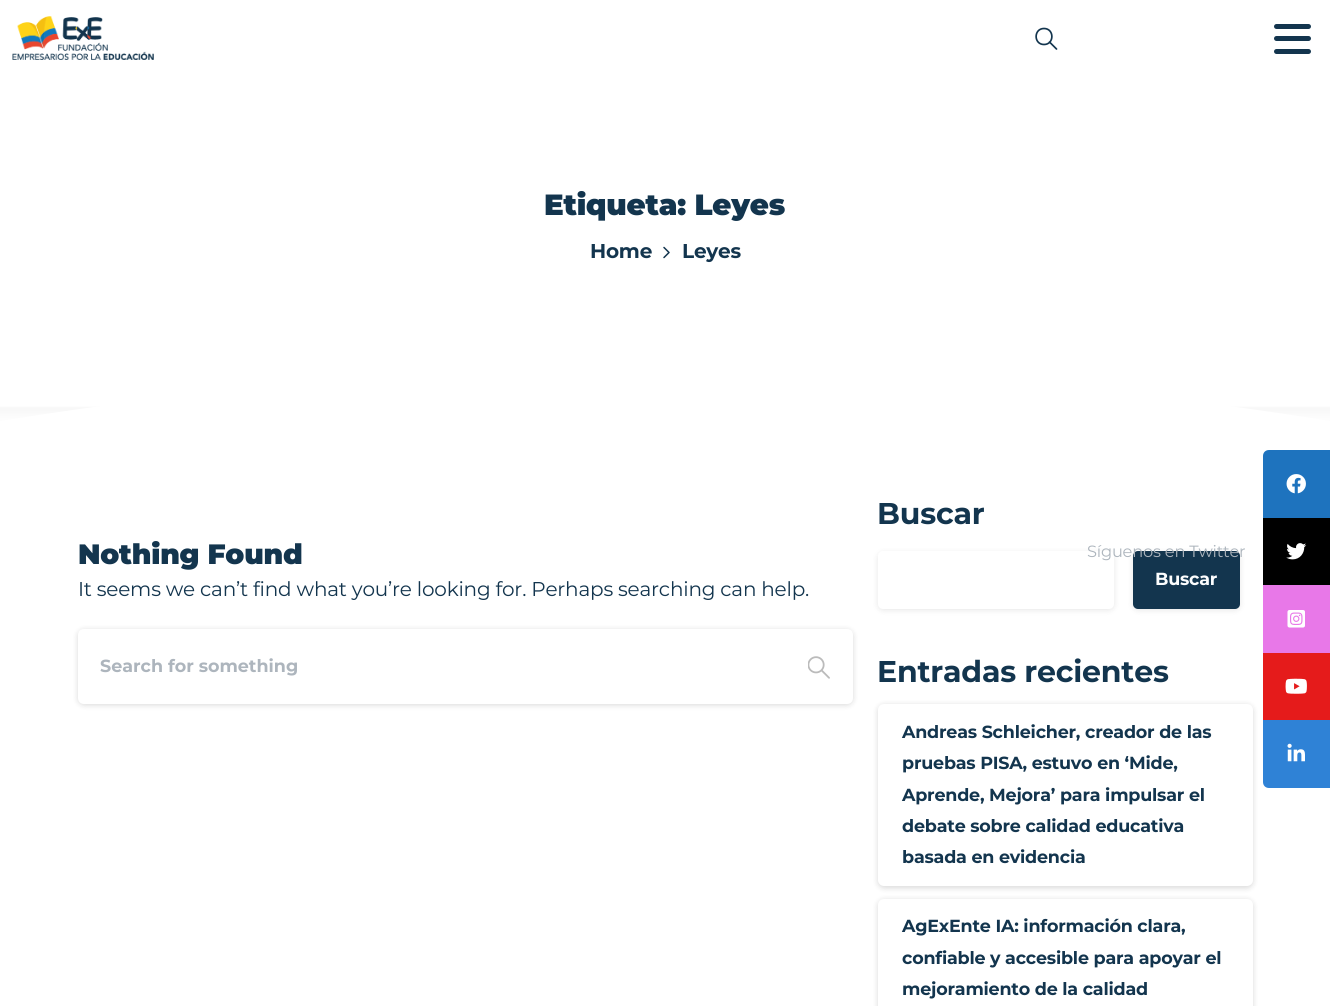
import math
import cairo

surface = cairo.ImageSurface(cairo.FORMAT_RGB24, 1330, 1006)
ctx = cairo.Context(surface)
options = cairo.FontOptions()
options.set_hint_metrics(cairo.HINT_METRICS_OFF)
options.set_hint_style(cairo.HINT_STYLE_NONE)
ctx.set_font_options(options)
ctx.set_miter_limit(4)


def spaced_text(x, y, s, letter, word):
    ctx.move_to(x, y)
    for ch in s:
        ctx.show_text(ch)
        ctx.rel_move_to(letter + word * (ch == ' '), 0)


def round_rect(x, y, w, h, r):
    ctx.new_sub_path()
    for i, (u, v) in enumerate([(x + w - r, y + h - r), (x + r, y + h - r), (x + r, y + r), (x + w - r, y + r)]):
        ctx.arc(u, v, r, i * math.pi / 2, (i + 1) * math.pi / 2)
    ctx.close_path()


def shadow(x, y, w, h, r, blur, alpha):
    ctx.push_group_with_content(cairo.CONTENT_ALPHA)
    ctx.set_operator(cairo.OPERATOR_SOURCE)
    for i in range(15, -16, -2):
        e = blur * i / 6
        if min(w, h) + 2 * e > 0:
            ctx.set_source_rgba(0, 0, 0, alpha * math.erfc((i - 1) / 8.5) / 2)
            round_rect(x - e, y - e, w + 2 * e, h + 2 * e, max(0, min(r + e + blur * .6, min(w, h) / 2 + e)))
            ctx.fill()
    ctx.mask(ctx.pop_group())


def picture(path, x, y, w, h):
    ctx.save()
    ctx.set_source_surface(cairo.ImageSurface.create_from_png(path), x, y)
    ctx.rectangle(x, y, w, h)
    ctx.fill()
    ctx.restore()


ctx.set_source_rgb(1, 1, 1)
ctx.paint()
picture("img1.png", 12, 16, 142, 44)
ctx.new_path()
ctx.move_to(1044, 44.5)
ctx.curve_to(1054.5, 44.5, 1054.5, 28.5, 1044, 28.5)
ctx.curve_to(1033.5, 28.5, 1033.5, 44.5, 1044, 44.5)
ctx.close_path()
ctx.move_to(1049.5, 42)
ctx.line_to(1056.5, 49)
ctx.set_source_rgb(0.078, 0.208, 0.306)
ctx.set_line_width(1.7)
ctx.set_line_cap(cairo.LINE_CAP_ROUND)
ctx.set_line_join(cairo.LINE_JOIN_ROUND)
ctx.stroke()
round_rect(1274, 24, 37, 5, 2.5)
ctx.fill()
round_rect(1274, 36, 37, 5, 2.5)
ctx.fill()
round_rect(1274, 49, 37, 5, 2.5)
ctx.fill()
picture("img2.png", 0, 76, 1330, 345)
ctx.select_font_face("Montserrat Black")
ctx.set_font_size(29.25)
spaced_text(544, 215, "Etiqueta: Leyes", -0.2, 0)
ctx.select_font_face("Montserrat", cairo.FONT_SLANT_NORMAL, cairo.FONT_WEIGHT_BOLD)
ctx.set_font_size(20)
spaced_text(590, 258, "Home", -0.2, 0)
ctx.new_path()
ctx.move_to(664, 257.5)
ctx.line_to(669, 252.5)
ctx.line_to(664, 247.5)
ctx.set_line_width(1.5)
ctx.stroke()
spaced_text(682, 258, "Leyes", -0.2, 0)
ctx.save()
ctx.rectangle(0, 303, 1330, 123)
ctx.clip()
ctx.set_source_rgba(1, 1, 1, 0.2)
ctx.new_path()
ctx.move_to(0, 356)
ctx.curve_to(441, 285, 889, 285, 1330, 356)
ctx.line_to(1330, 428)
ctx.line_to(0, 428)
ctx.close_path()
ctx.fill()
ctx.set_source_rgba(1, 1, 1, 0.6)
ctx.new_path()
ctx.move_to(0, 389)
ctx.curve_to(441, 317, 889, 317, 1330, 389)
ctx.line_to(1330, 428)
ctx.line_to(0, 428)
ctx.close_path()
ctx.fill()
ctx.set_source_rgb(1, 1, 1)
ctx.new_path()
ctx.move_to(0, 421)
ctx.curve_to(441, 350, 889, 350, 1330, 421)
ctx.line_to(1330, 428)
ctx.line_to(0, 428)
ctx.close_path()
ctx.fill()
ctx.restore()
ctx.select_font_face("Montserrat Black")
ctx.set_font_size(28)
spaced_text(78, 564, "Nothing Found", -0.2, 0)
ctx.select_font_face("Montserrat")
ctx.set_font_size(20)
spaced_text(78, 596, "It seems we can’t find what you’re looking for. Perhaps searching can help.", -0.2, 0)
ctx.set_source_rgb(0, 0, 0)
shadow(78, 630, 775, 75, 6, 3, 0.15)
ctx.set_source_rgb(1, 1, 1)
ctx.new_path()
ctx.move_to(84, 629)
ctx.line_to(785, 629)
ctx.line_to(785, 704)
ctx.line_to(84, 704)
ctx.curve_to(80.5, 704, 78, 701.5, 78, 698)
ctx.line_to(78, 635)
ctx.curve_to(78, 631.5, 80.5, 629, 84, 629)
ctx.close_path()
ctx.fill()
ctx.select_font_face("Montserrat", cairo.FONT_SLANT_NORMAL, cairo.FONT_WEIGHT_BOLD)
ctx.set_font_size(17.5)
ctx.set_source_rgb(0.678, 0.71, 0.741)
ctx.move_to(100, 672)
ctx.show_text("Search for something")
ctx.set_source_rgb(1, 1, 1)
ctx.new_path()
ctx.move_to(785, 629)
ctx.line_to(847, 629)
ctx.curve_to(850.5, 629, 853, 631.5, 853, 635)
ctx.line_to(853, 698)
ctx.curve_to(853, 701.5, 850.5, 704, 847, 704)
ctx.line_to(785, 704)
ctx.close_path()
ctx.fill()
picture("img3.png", 808, 656, 22, 23)
ctx.set_font_size(30)
ctx.set_source_rgb(0.078, 0.208, 0.306)
spaced_text(877, 524, "Buscar", -0.2, 0)
ctx.set_source_rgb(0, 0, 0)
shadow(878, 553, 236, 57, 5, 3, 0.1)
ctx.set_source_rgb(1, 1, 1)
round_rect(878, 551, 236, 58, 5)
ctx.fill()
ctx.set_source_rgb(0, 0, 0)
shadow(1133, 553, 107, 57, 5, 3, 0.1)
ctx.set_source_rgb(0.078, 0.208, 0.306)
round_rect(1133, 551, 107, 58, 5)
ctx.fill()
ctx.set_font_size(17.5)
ctx.set_source_rgb(0.988, 0.992, 0.996)
spaced_text(1155, 585, "Buscar", -0.2, 0)
ctx.set_font_size(30)
ctx.set_source_rgb(0.078, 0.208, 0.306)
spaced_text(877, 682, "Entradas recientes", -0.2, 0)
ctx.set_source_rgb(0, 0, 0)
shadow(878, 705, 375, 183, 6, 3, 0.15)
ctx.set_source_rgb(1, 1, 1)
round_rect(878, 704, 375, 182, 6)
ctx.fill()
ctx.set_font_size(17.5)
ctx.set_source_rgb(0.078, 0.208, 0.306)
spaced_text(902, 738, "Andreas Schleicher, creador de las", -0.2, 0)
spaced_text(902, 769, "pruebas PISA, estuvo en ‘Mide,", -0.2, 0)
spaced_text(902, 801, "Aprende, Mejora’ para impulsar el", -0.2, 0)
spaced_text(902, 832, "debate sobre calidad educativa", -0.2, 0)
spaced_text(902, 863, "basada en evidencia", -0.2, 0)
ctx.set_source_rgb(0, 0, 0)
shadow(878, 900, 375, 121, 6, 3, 0.15)
ctx.set_source_rgb(1, 1, 1)
round_rect(878, 899, 375, 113, 6)
ctx.fill()
ctx.set_source_rgb(0.078, 0.208, 0.306)
spaced_text(902, 932, "AgExEnte IA: información clara,", -0.2, 0)
spaced_text(902, 964, "confiable y accesible para apoyar el", -0.2, 0)
spaced_text(902, 995, "mejoramiento de la calidad", -0.2, 0)
ctx.set_source_rgb(0.118, 0.451, 0.745)
ctx.new_path()
ctx.move_to(1269, 450)
ctx.line_to(1330, 450)
ctx.line_to(1330, 518)
ctx.line_to(1263, 518)
ctx.line_to(1263, 456)
ctx.curve_to(1263, 452.5, 1265.5, 450, 1269, 450)
ctx.close_path()
ctx.fill()
picture("img4.png", 1286, 474, 20, 20)
ctx.set_source_rgb(0, 0, 0)
ctx.rectangle(1263, 518, 67, 67)
ctx.fill()
ctx.select_font_face("Montserrat")
ctx.set_font_size(16.25)
ctx.set_source_rgb(0.678, 0.71, 0.741)
spaced_text(1087, 557, "Síguenos en Twitter", -0.2, 0)
picture("img5.png", 1286, 543, 21, 17)
ctx.set_source_rgb(0.91, 0.471, 0.91)
ctx.rectangle(1263, 585, 67, 68)
ctx.fill()
picture("img6.png", 1287, 610, 18, 18)
ctx.set_source_rgb(0.898, 0.106, 0.106)
ctx.rectangle(1263, 653, 67, 67)
ctx.fill()
picture("img7.png", 1285, 678, 22, 16)
ctx.set_source_rgb(0.184, 0.51, 0.839)
ctx.new_path()
ctx.move_to(1263, 720)
ctx.line_to(1330, 720)
ctx.line_to(1330, 788)
ctx.line_to(1269, 788)
ctx.curve_to(1265.5, 788, 1263, 785.5, 1263, 782)
ctx.close_path()
ctx.fill()
picture("img8.png", 1287, 743, 18, 19)
surface.write_to_png("page.png")
